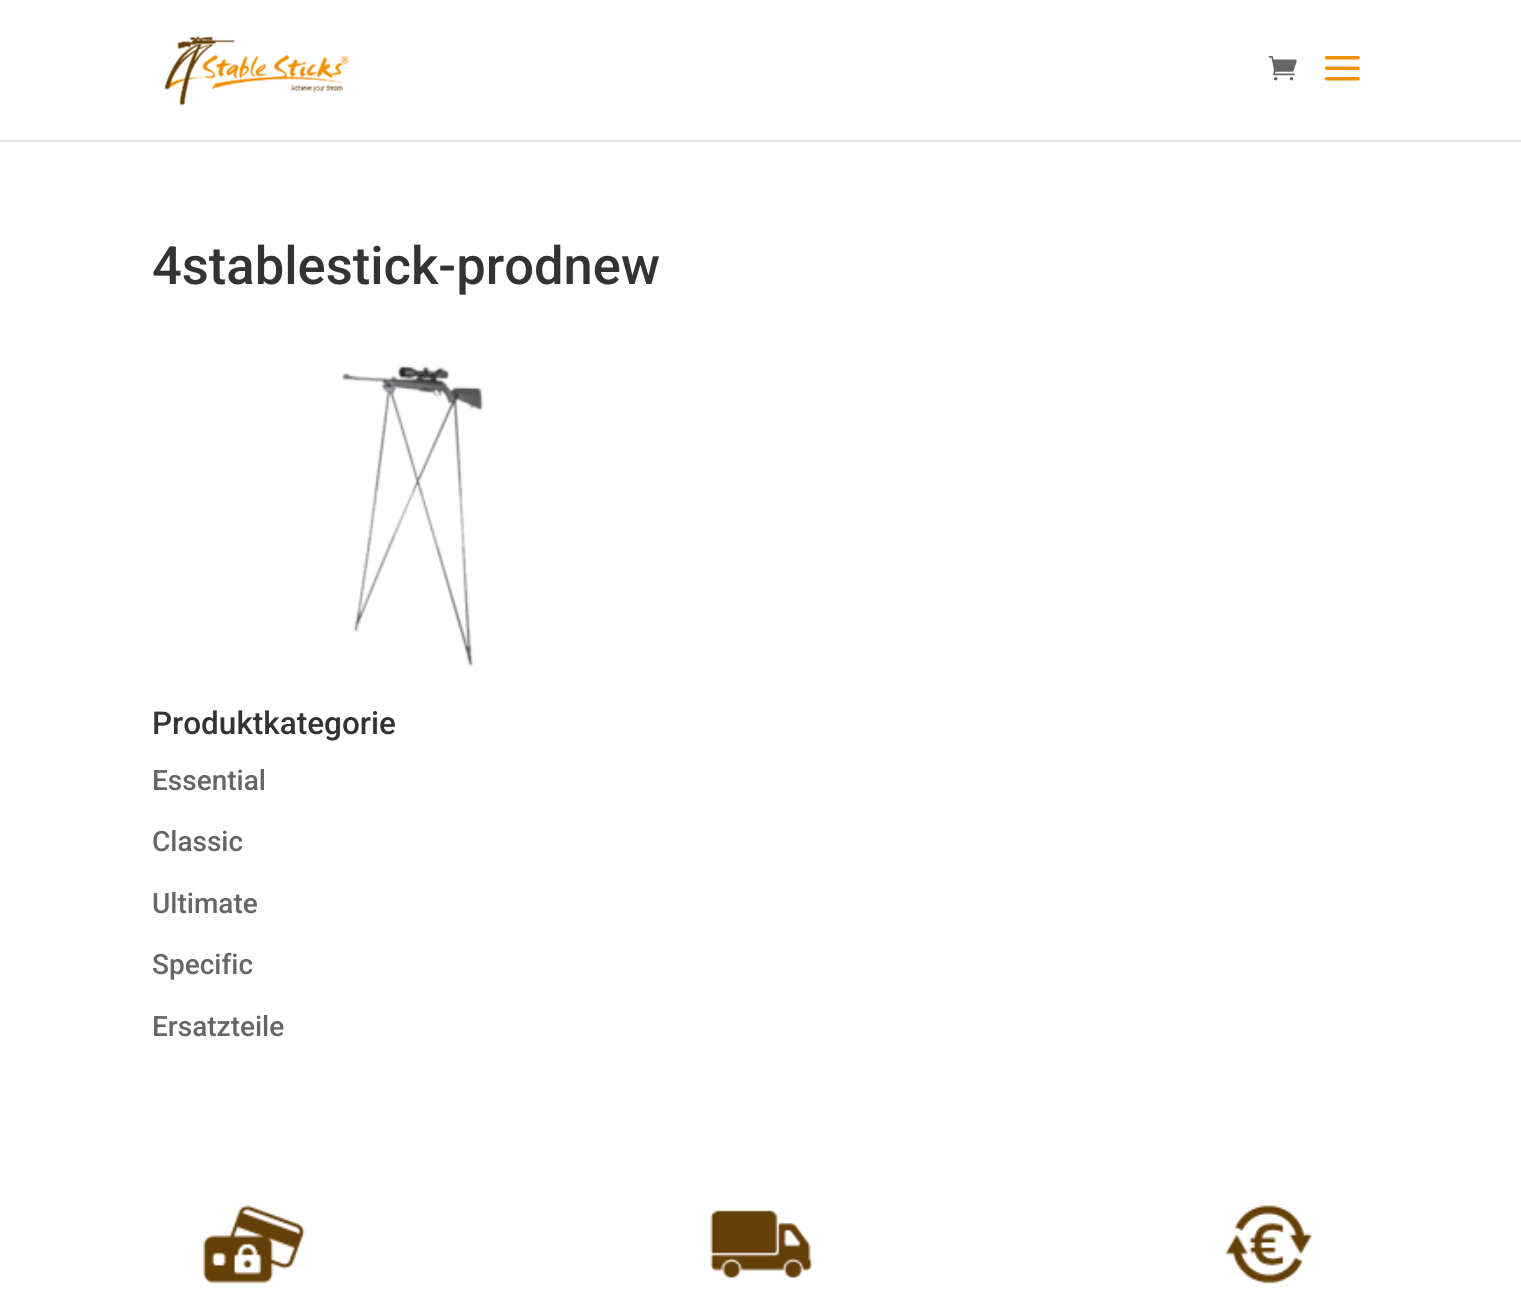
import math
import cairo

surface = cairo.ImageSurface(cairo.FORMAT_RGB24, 1521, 1300)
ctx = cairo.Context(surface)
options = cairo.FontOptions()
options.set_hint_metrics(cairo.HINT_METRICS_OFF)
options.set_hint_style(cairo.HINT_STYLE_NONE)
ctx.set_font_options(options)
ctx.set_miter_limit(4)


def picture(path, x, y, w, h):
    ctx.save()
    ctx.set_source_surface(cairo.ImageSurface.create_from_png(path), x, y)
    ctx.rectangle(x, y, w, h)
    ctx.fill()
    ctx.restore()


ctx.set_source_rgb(1, 1, 1)
ctx.paint()
ctx.set_source_rgb(0.902, 0.902, 0.902)
ctx.new_path()
ctx.move_to(0, 140)
ctx.line_to(0, 142)
ctx.line_to(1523, 142)
ctx.line_to(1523, 2)
ctx.line_to(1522, 2)
ctx.line_to(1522, 140)
ctx.close_path()
ctx.fill()
picture("img1.png", 164, 36, 185, 69)
picture("img2.png", 1268, 56, 29, 25)
picture("img3.png", 1324, 56, 36, 25)
ctx.select_font_face("Roboto Medium")
ctx.set_font_size(52.5)
ctx.set_source_rgb(0.2, 0.2, 0.2)
ctx.move_to(152, 284)
ctx.show_text("4stablestick-prodnew")
picture("img4.png", 341, 365, 143, 302)
ctx.set_font_size(31.5)
ctx.move_to(152, 734)
ctx.show_text("Produktkategorie")
ctx.set_font_size(28)
ctx.set_source_rgb(0.4, 0.4, 0.4)
ctx.move_to(152, 790)
ctx.show_text("Essential")
ctx.move_to(152, 851)
ctx.show_text("Classic")
ctx.move_to(152, 913)
ctx.show_text("Ultimate")
ctx.move_to(152, 974)
ctx.show_text("Specific")
ctx.move_to(152, 1036)
ctx.show_text("Ersatzteile")
picture("img5.png", 203, 1205, 102, 79)
picture("img6.png", 710, 1210, 102, 68)
picture("img7.png", 1225, 1205, 88, 79)
surface.write_to_png("page.png")
